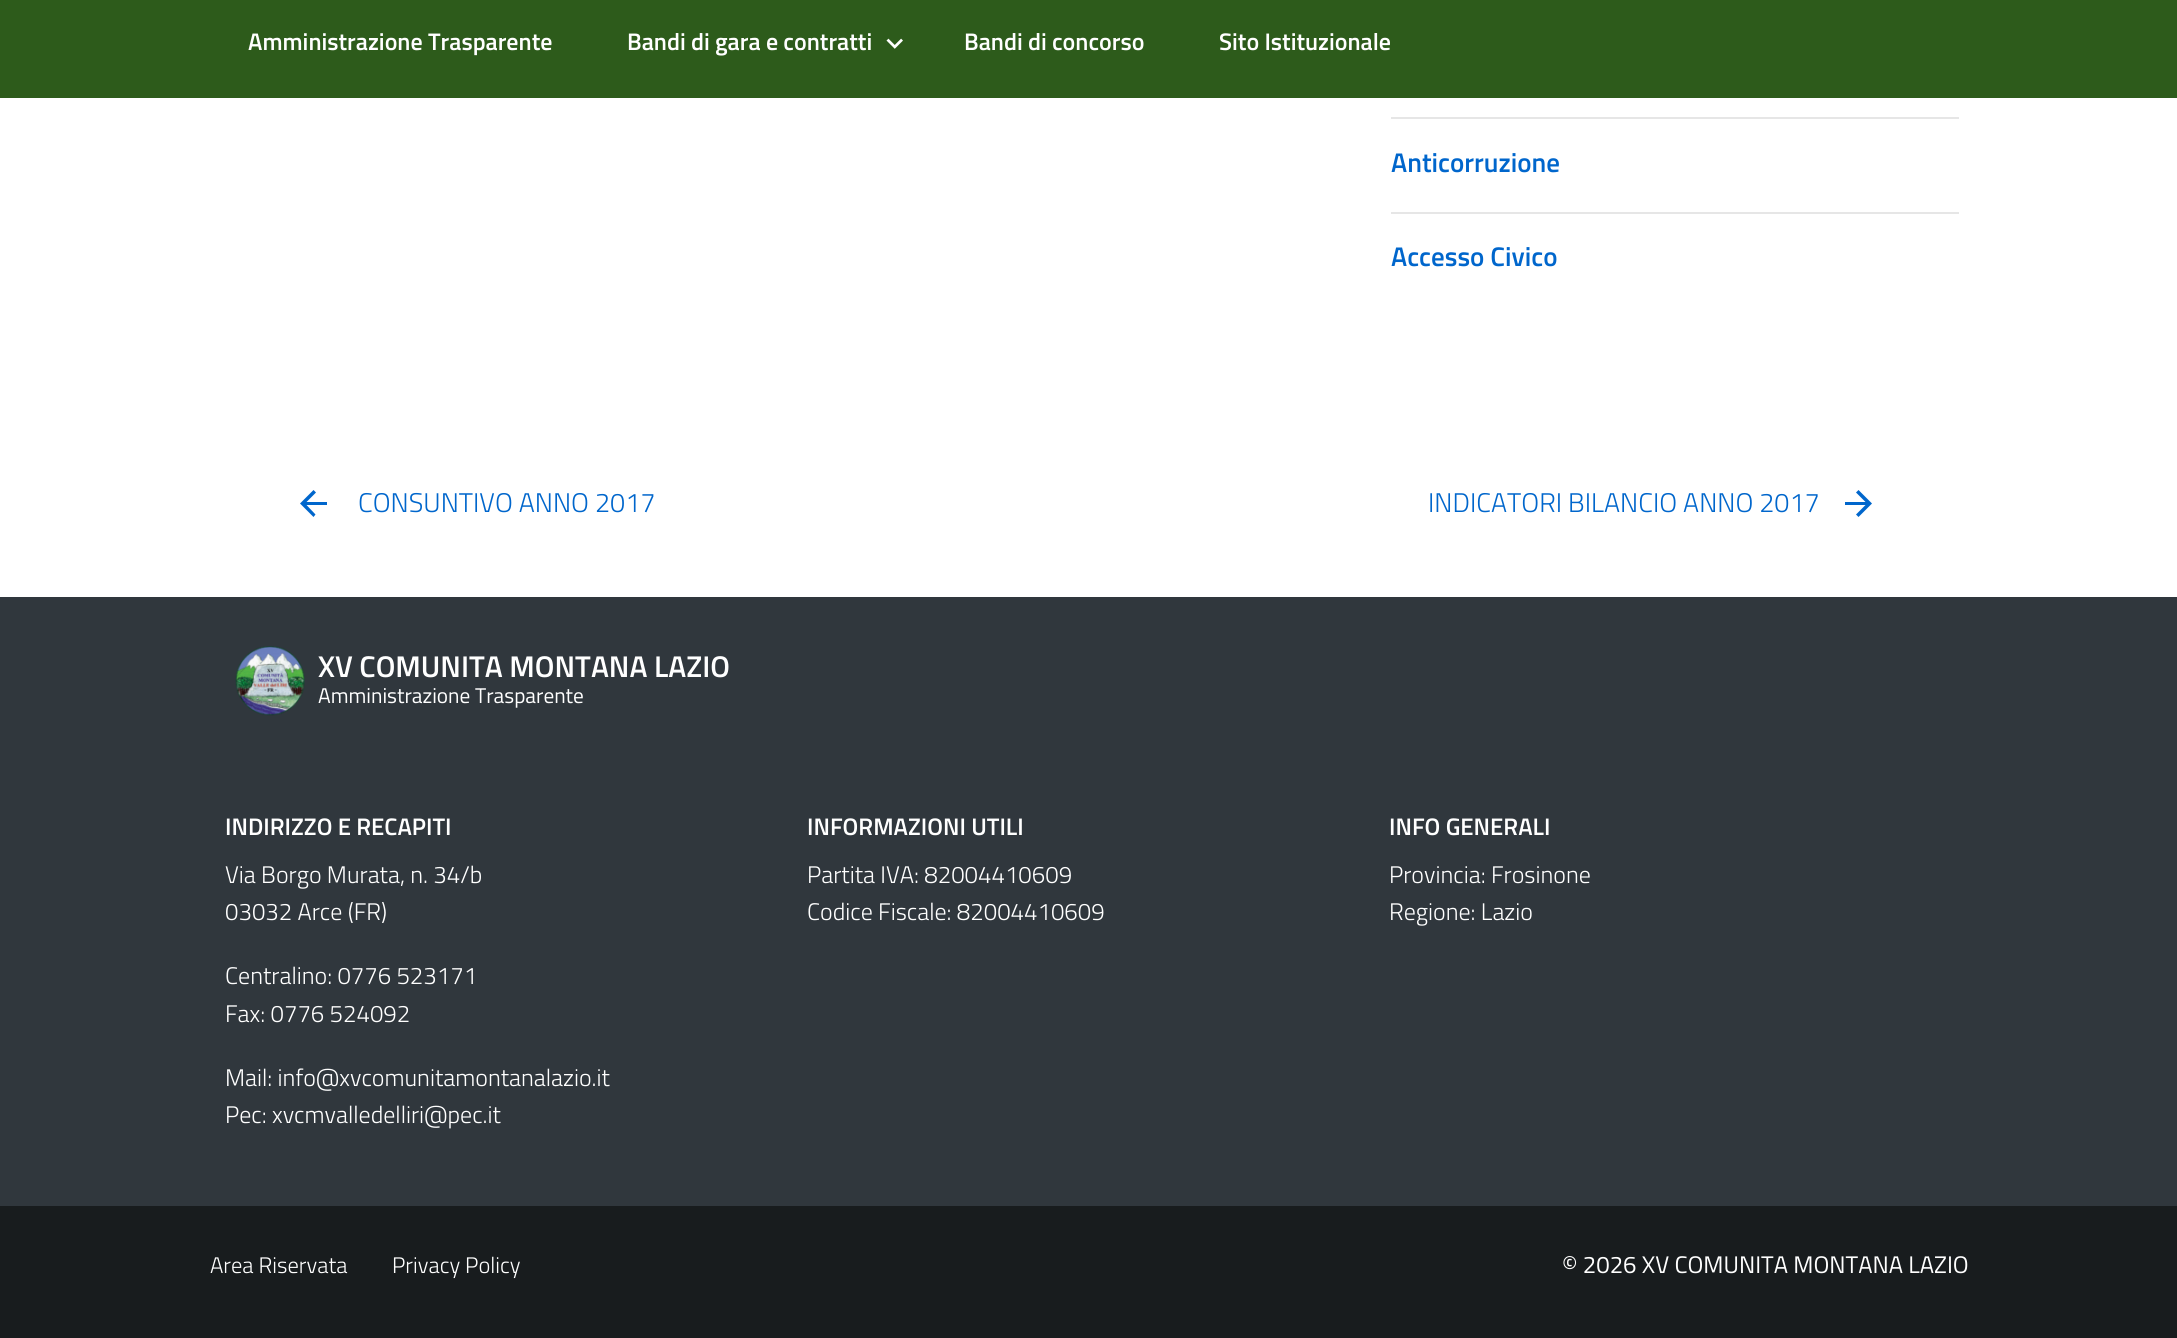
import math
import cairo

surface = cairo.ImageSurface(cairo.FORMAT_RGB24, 2177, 1338)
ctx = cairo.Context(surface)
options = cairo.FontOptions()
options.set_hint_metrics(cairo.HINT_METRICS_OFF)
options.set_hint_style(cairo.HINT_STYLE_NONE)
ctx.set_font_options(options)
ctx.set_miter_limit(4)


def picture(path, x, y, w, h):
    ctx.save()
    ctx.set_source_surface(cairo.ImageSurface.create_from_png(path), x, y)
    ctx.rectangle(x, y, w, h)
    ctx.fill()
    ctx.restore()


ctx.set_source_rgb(1, 1, 1)
ctx.paint()
ctx.set_source_rgb(0.176, 0.357, 0.106)
ctx.rectangle(0, 0, 2177, 98)
ctx.fill()
ctx.select_font_face("Titillium Web SemiBold")
ctx.set_font_size(24)
ctx.set_source_rgb(1, 1, 1)
ctx.move_to(248, 50)
ctx.show_text("Amministrazione Trasparente")
ctx.move_to(627, 50)
ctx.show_text("Bandi di gara e contratti")
picture("img1.png", 886, 38, 17, 11)
ctx.move_to(964, 50)
ctx.show_text("Bandi di concorso")
ctx.move_to(1219, 50)
ctx.show_text("Sito Istituzionale")
ctx.set_source_rgb(0.902, 0.902, 0.902)
ctx.rectangle(1391, 117, 568, 2)
ctx.fill()
ctx.set_font_size(27)
ctx.set_source_rgb(0, 0.4, 0.8)
ctx.move_to(1391, 172)
ctx.show_text("Anticorruzione")
ctx.set_source_rgb(0.902, 0.902, 0.902)
ctx.rectangle(1391, 212, 568, 2)
ctx.fill()
ctx.set_source_rgb(0, 0.4, 0.8)
ctx.move_to(1391, 266)
ctx.show_text("Accesso Civico")
ctx.new_path()
ctx.move_to(327, 502)
ctx.line_to(306.5, 502)
ctx.line_to(316, 492.5)
ctx.line_to(313.5, 490)
ctx.line_to(300, 503.5)
ctx.line_to(313.5, 517)
ctx.line_to(315.5, 514.5)
ctx.line_to(306.5, 505)
ctx.line_to(327, 505)
ctx.close_path()
ctx.fill()
ctx.select_font_face("Titillium Web Light")
ctx.move_to(358, 512)
ctx.show_text("CONSUNTIVO ANNO 2017")
ctx.move_to(1428, 512)
ctx.show_text("INDICATORI BILANCIO ANNO 2017")
ctx.new_path()
ctx.move_to(1845, 505)
ctx.line_to(1865.5, 505)
ctx.line_to(1856, 514.5)
ctx.line_to(1858.5, 517)
ctx.line_to(1872, 503.5)
ctx.line_to(1858.5, 490)
ctx.line_to(1856, 492.5)
ctx.line_to(1865.5, 502)
ctx.line_to(1845, 502)
ctx.close_path()
ctx.fill()
ctx.set_source_rgb(0.188, 0.216, 0.239)
ctx.rectangle(0, 597, 2177, 609)
ctx.fill()
picture("img2.png", 235, 646, 70, 70)
ctx.select_font_face("Titillium Web SemiBold")
ctx.set_font_size(30)
ctx.set_source_rgb(1, 1, 1)
ctx.move_to(318, 677)
ctx.show_text("XV COMUNITA MONTANA LAZIO")
ctx.select_font_face("Titillium Web")
ctx.set_font_size(21.3)
ctx.move_to(318, 703)
ctx.show_text("Amministrazione Trasparente")
ctx.select_font_face("Titillium Web SemiBold")
ctx.set_font_size(24)
ctx.move_to(225, 835)
ctx.show_text("INDIRIZZO E RECAPITI")
ctx.select_font_face("Titillium Web Light")
ctx.move_to(225, 883)
ctx.show_text("Via Borgo Murata, n. 34/b")
ctx.move_to(225, 920)
ctx.show_text("03032 Arce (FR)")
ctx.move_to(225, 984)
ctx.show_text("Centralino: 0776 523171")
ctx.move_to(225, 1022)
ctx.show_text("Fax: 0776 524092")
ctx.move_to(225, 1086)
ctx.show_text("Mail: info@xvcomunitamontanalazio.it")
ctx.move_to(225, 1123)
ctx.show_text("Pec: xvcmvalledelliri@pec.it")
ctx.select_font_face("Titillium Web SemiBold")
ctx.move_to(807, 835)
ctx.show_text("INFORMAZIONI UTILI")
ctx.select_font_face("Titillium Web Light")
ctx.move_to(807, 883)
ctx.show_text("Partita IVA: 82004410609")
ctx.move_to(807, 920)
ctx.show_text("Codice Fiscale: 82004410609")
ctx.select_font_face("Titillium Web SemiBold")
ctx.move_to(1389, 835)
ctx.show_text("INFO GENERALI")
ctx.select_font_face("Titillium Web Light")
ctx.move_to(1389, 883)
ctx.show_text("Provincia: Frosinone")
ctx.move_to(1389, 920)
ctx.show_text("Regione: Lazio")
ctx.set_source_rgb(0.094, 0.11, 0.118)
ctx.rectangle(0, 1206, 2177, 132)
ctx.fill()
ctx.set_font_size(22.5)
ctx.set_source_rgb(1, 1, 1)
ctx.move_to(210, 1273)
ctx.show_text("Area Riservata")
ctx.move_to(392, 1273)
ctx.show_text("Privacy Policy")
ctx.select_font_face("Titillium Web")
ctx.set_font_size(24)
ctx.move_to(1562, 1273)
ctx.show_text("© 2026 XV COMUNITA MONTANA LAZIO")
surface.write_to_png("page.png")
